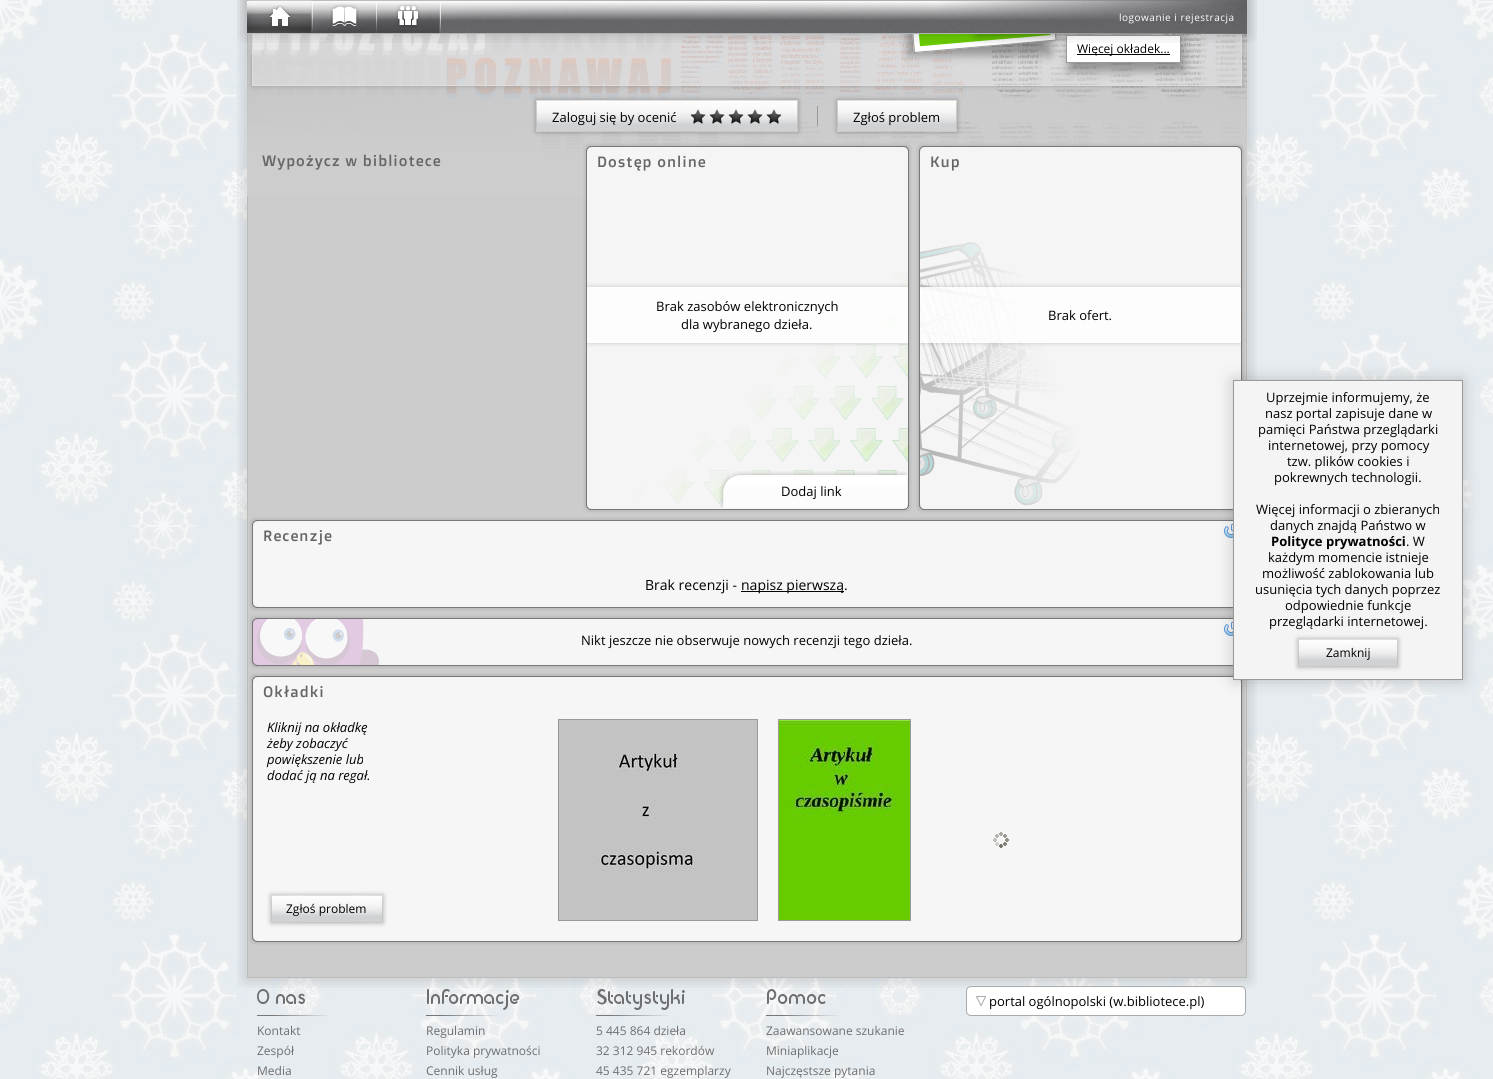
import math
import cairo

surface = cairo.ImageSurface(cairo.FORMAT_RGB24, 1493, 1079)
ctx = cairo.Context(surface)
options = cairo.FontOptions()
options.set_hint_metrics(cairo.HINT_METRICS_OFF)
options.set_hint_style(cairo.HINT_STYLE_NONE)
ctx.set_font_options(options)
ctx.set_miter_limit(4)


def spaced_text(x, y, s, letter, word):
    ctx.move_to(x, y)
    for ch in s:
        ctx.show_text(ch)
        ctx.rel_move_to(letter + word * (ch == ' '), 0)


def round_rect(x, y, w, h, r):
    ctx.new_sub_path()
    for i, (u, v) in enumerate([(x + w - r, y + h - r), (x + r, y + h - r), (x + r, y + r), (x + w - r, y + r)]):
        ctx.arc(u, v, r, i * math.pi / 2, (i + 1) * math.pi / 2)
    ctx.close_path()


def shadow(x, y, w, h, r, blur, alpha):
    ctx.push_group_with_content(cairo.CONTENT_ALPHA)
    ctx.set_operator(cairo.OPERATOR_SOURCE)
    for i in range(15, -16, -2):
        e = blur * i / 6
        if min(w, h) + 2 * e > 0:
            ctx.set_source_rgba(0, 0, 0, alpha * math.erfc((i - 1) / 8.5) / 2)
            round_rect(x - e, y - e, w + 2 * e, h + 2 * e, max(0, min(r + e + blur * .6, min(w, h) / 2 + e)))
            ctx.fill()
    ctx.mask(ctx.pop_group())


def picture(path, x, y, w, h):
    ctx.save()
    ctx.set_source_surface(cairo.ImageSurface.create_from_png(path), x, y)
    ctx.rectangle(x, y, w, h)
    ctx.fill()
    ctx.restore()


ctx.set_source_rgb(1, 1, 1)
ctx.paint()
picture("img1.png", 0, 0, 1493, 1079)
ctx.set_source_rgb(0.8, 0.8, 0.8)
ctx.rectangle(247, 196, 1000, 782)
ctx.fill()
picture("img14.png", 247, 34, 1000, 122)
picture("img13.png", 237, 0, 1020, 988)
picture("img15.png", 247, 34, 1000, 162)
ctx.save()
ctx.set_fill_rule(cairo.FILL_RULE_EVEN_ODD)
ctx.new_path()
ctx.move_to(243, 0)
ctx.line_to(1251, 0)
ctx.line_to(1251, 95)
ctx.line_to(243, 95)
ctx.close_path()
ctx.move_to(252, -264)
ctx.line_to(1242, -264)
ctx.line_to(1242, 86)
ctx.line_to(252, 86)
ctx.close_path()
ctx.clip()
ctx.set_source_rgb(0, 0, 0)
shadow(252, -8, 990, 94, 0, 2.5, 0.2)
ctx.restore()
ctx.set_source_rgba(1, 1, 1, 0.3)
ctx.rectangle(253, 34, 988, 51)
ctx.fill()
ctx.rectangle(252.5, -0.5, 989, 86)
ctx.set_source_rgb(0.867, 0.867, 0.867)
ctx.set_line_width(1)
ctx.stroke()
ctx.set_source_rgb(0, 0, 0)
shadow(908, -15, 143, 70, 0, 5, 0.33)
ctx.set_source_rgb(1, 1, 1)
ctx.new_path()
ctx.move_to(896, -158)
ctx.line_to(1038, -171)
ctx.line_to(1056, 40)
ctx.line_to(914, 53)
ctx.close_path()
ctx.fill()
ctx.new_path()
ctx.move_to(896, -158)
ctx.line_to(1037.5, -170.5)
ctx.line_to(1056, 40)
ctx.line_to(914.5, 52.5)
ctx.close_path()
ctx.set_source_rgb(0.6, 0.6, 0.6)
ctx.stroke()
picture("img16.png", 918, 34, 133, 13)
ctx.set_source_rgb(0, 0, 0)
shadow(976, -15, 210, 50, 0, 5, 0.33)
ctx.set_source_rgb(1, 1, 1)
ctx.new_path()
ctx.move_to(982, -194)
ctx.line_to(1191, -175)
ctx.line_to(1173, 36)
ctx.line_to(964, 17)
ctx.close_path()
ctx.fill()
ctx.new_path()
ctx.move_to(982.5, -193)
ctx.line_to(1191, -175)
ctx.line_to(1172.5, 35)
ctx.line_to(964, 17)
ctx.close_path()
ctx.set_source_rgb(0.6, 0.6, 0.6)
ctx.stroke()
ctx.set_source_rgb(0, 0, 0)
shadow(1069, 43, 115, 28, 0, 5, 0.33)
ctx.set_source_rgb(1, 1, 1)
ctx.rectangle(1066.5, 35.5, 114, 27)
ctx.fill_preserve()
ctx.set_source_rgb(0.6, 0.6, 0.6)
ctx.stroke()
picture("img2.png", 237, 0, 1020, 43)
picture("img3.png", 247, 0, 1000, 34)
picture("img4.png", 247, 0, 64, 33)
picture("img5.png", 312, 2, 1, 31)
picture("img6.png", 269, 5, 22, 23)
picture("img7.png", 311, 10, 64, 23)
picture("img8.png", 376, 2, 1, 31)
picture("img9.png", 330, 4, 29, 22)
picture("img10.png", 375, 10, 64, 23)
picture("img11.png", 440, 2, 1, 31)
picture("img12.png", 395, 4, 26, 24)
ctx.select_font_face("Open Sans")
ctx.set_font_size(10)
ctx.set_source_rgb(1, 1, 1)
spaced_text(1119, 21, "logowanie i rejestracja", 0.5, 0)
ctx.set_source_rgb(0, 0, 0)
ctx.rectangle(1077, 54, 93, 1)
ctx.fill()
ctx.set_font_size(12)
ctx.move_to(1077, 53)
ctx.show_text("Więcej okładek...")
ctx.set_source_rgb(0, 0, 0)
shadow(536, 100, 262, 32, 0, 2.5, 0.3)
ctx.set_source_rgb(0.937, 0.937, 0.937)
ctx.rectangle(536, 100, 262, 32)
ctx.fill()
picture("img17.png", 536, 100, 262, 32)
ctx.set_font_size(13)
ctx.set_source_rgb(0, 0, 0)
ctx.move_to(552, 122)
ctx.show_text("Zaloguj się by ocenić")
picture("img18.png", 690, 109, 16, 15)
picture("img18.png", 709, 109, 16, 15)
picture("img18.png", 728, 109, 16, 15)
picture("img18.png", 747, 109, 16, 15)
picture("img18.png", 766, 109, 16, 15)
ctx.set_source_rgb(0.6, 0.6, 0.6)
ctx.rectangle(817, 106, 1, 20)
ctx.fill()
ctx.set_source_rgb(0, 0, 0)
shadow(837, 100, 120, 32, 0, 2.5, 0.3)
ctx.set_source_rgb(0.937, 0.937, 0.937)
ctx.rectangle(837, 100, 120, 32)
ctx.fill()
picture("img19.png", 837, 100, 120, 32)
ctx.set_source_rgb(0, 0, 0)
ctx.move_to(853, 122)
ctx.show_text("Zgłoś problem")
ctx.select_font_face("Doppio One")
ctx.set_font_size(15)
ctx.set_source_rgb(0.4, 0.4, 0.4)
spaced_text(262, 166, "Wypożycz w bibliotece", 1, 0)
ctx.set_source_rgba(1, 1, 1, 0.8)
round_rect(586, 146, 323, 364, 5)
ctx.fill()
picture("img20.png", 586, 272, 322, 232)
picture("img21.png", 583, 143, 329, 370)
ctx.set_source_rgb(0.4, 0.4, 0.4)
spaced_text(597, 167, "Dostęp online", 1, 0)
ctx.save()
round_rect(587, 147, 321, 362, 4)
ctx.clip()
ctx.set_fill_rule(cairo.FILL_RULE_EVEN_ODD)
ctx.new_path()
ctx.move_to(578, 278)
ctx.line_to(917, 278)
ctx.line_to(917, 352)
ctx.line_to(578, 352)
ctx.close_path()
ctx.move_to(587, 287)
ctx.line_to(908, 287)
ctx.line_to(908, 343)
ctx.line_to(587, 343)
ctx.close_path()
ctx.clip()
ctx.set_source_rgb(0, 0, 0)
shadow(587, 287, 321, 56, 0, 2.5, 0.2)
ctx.restore()
ctx.set_source_rgba(1, 1, 1, 0.8)
ctx.rectangle(587, 287, 321, 56)
ctx.fill()
ctx.select_font_face("Open Sans")
ctx.set_font_size(13)
ctx.set_source_rgb(0, 0, 0)
ctx.move_to(656, 311)
ctx.show_text("Brak zasobów elektronicznych")
ctx.move_to(681, 329)
ctx.show_text("dla wybranego dzieła.")
picture("img22.png", 719, 471, 188, 37)
ctx.move_to(781, 496)
ctx.show_text("Dodaj link")
ctx.set_source_rgba(1, 1, 1, 0.8)
round_rect(919, 146, 323, 364, 5)
ctx.fill()
picture("img23.png", 920, 242, 322, 264)
picture("img24.png", 916, 143, 329, 370)
ctx.select_font_face("Doppio One")
ctx.set_font_size(15)
ctx.set_source_rgb(0.4, 0.4, 0.4)
spaced_text(930, 167, "Kup", 1, 0)
ctx.save()
round_rect(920, 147, 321, 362, 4)
ctx.clip()
ctx.set_fill_rule(cairo.FILL_RULE_EVEN_ODD)
ctx.new_path()
ctx.move_to(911, 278)
ctx.line_to(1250, 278)
ctx.line_to(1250, 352)
ctx.line_to(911, 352)
ctx.close_path()
ctx.move_to(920, 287)
ctx.line_to(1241, 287)
ctx.line_to(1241, 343)
ctx.line_to(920, 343)
ctx.close_path()
ctx.clip()
ctx.set_source_rgb(0, 0, 0)
shadow(920, 287, 321, 56, 0, 2.5, 0.2)
ctx.restore()
ctx.set_source_rgba(1, 1, 1, 0.8)
ctx.rectangle(920, 287, 321, 56)
ctx.fill()
ctx.select_font_face("Open Sans")
ctx.set_font_size(13)
ctx.set_source_rgb(0, 0, 0)
ctx.move_to(1048, 320)
ctx.show_text("Brak ofert.")
ctx.set_source_rgb(0.961, 0.961, 0.961)
round_rect(252, 520, 990, 88, 5)
ctx.fill()
picture("img25.png", 249, 517, 984, 94)
ctx.select_font_face("Doppio One")
ctx.set_font_size(15)
ctx.set_source_rgb(0.4, 0.4, 0.4)
spaced_text(263, 541, "Recenzje", 1, 0)
picture("img26.png", 1224, 524, 9, 14)
ctx.select_font_face("Open Sans")
ctx.set_font_size(14)
ctx.set_source_rgb(0, 0, 0)
ctx.move_to(645, 590)
ctx.show_text("Brak recenzji -")
ctx.rectangle(741, 591, 103, 1)
ctx.fill()
ctx.move_to(741, 590)
ctx.show_text("napisz pierwszą.")
ctx.set_source_rgb(0.961, 0.961, 0.961)
round_rect(252, 618, 990, 48, 5)
ctx.fill()
picture("img27.png", 249, 615, 984, 54)
picture("img26.png", 1224, 622, 9, 14)
picture("img28.png", 253, 619, 126, 46)
ctx.set_font_size(13)
ctx.set_source_rgb(0, 0, 0)
ctx.move_to(581, 645)
ctx.show_text("Nikt jeszcze nie obserwuje nowych recenzji tego dzieła.")
ctx.set_source_rgb(0.961, 0.961, 0.961)
round_rect(252, 676, 990, 266, 5)
ctx.fill()
picture("img29.png", 249, 673, 996, 272)
ctx.select_font_face("Doppio One")
ctx.set_font_size(15)
ctx.set_source_rgb(0.4, 0.4, 0.4)
spaced_text(263, 697, "Okładki", 1, 0)
ctx.select_font_face("Open Sans", cairo.FONT_SLANT_ITALIC)
ctx.set_font_size(13)
ctx.set_source_rgb(0, 0, 0)
ctx.move_to(267, 732)
ctx.show_text("Kliknij na okładkę")
ctx.move_to(267, 748)
ctx.show_text("żeby zobaczyć")
ctx.move_to(267, 764)
ctx.show_text("powiększenie lub")
ctx.move_to(267, 780)
ctx.show_text("dodać ją na regał.")
ctx.rectangle(558.5, 719.5, 199, 201)
ctx.set_source_rgb(0.6, 0.6, 0.6)
ctx.stroke()
picture("img30.png", 559, 720, 198, 200)
ctx.rectangle(778.5, 719.5, 132, 201)
ctx.stroke()
picture("img31.png", 779, 720, 131, 200)
picture("img32.png", 993, 832, 16, 16)
ctx.set_source_rgb(0, 0, 0)
shadow(271, 895, 112, 28, 0, 2.5, 0.3)
ctx.set_source_rgb(0.937, 0.937, 0.937)
ctx.rectangle(271, 895, 112, 28)
ctx.fill()
picture("img33.png", 271, 895, 112, 28)
ctx.select_font_face("Open Sans")
ctx.set_font_size(12)
ctx.set_source_rgb(0, 0, 0)
ctx.move_to(286, 913)
ctx.show_text("Zgłoś problem")
ctx.set_source_rgb(1, 1, 1)
round_rect(966.5, 986.5, 279, 29, 4.5)
ctx.fill_preserve()
ctx.set_source_rgb(0.667, 0.667, 0.667)
ctx.stroke()
picture("img34.png", 976, 996, 10, 10)
ctx.set_font_size(13)
ctx.set_source_rgb(0, 0, 0)
ctx.move_to(989, 1006)
ctx.show_text("portal ogólnopolski (w.bibliotece.pl)")
picture("img35.png", 257, 989, 48, 16)
ctx.set_font_size(12)
ctx.set_source_rgb(0.431, 0.431, 0.443)
ctx.move_to(257, 1035)
ctx.show_text("Kontakt")
ctx.move_to(257, 1055)
ctx.show_text("Zespół")
ctx.move_to(257, 1075)
ctx.show_text("Media")
picture("img36.png", 427, 989, 93, 21)
ctx.move_to(426, 1035)
ctx.show_text("Regulamin")
ctx.move_to(426, 1055)
ctx.show_text("Polityka prywatności")
ctx.move_to(426, 1075)
ctx.show_text("Cennik usług")
picture("img37.png", 597, 989, 88, 21)
ctx.move_to(596, 1035)
ctx.show_text("5 445 864 dzieła")
ctx.move_to(596, 1055)
ctx.show_text("32 312 945 rekordów")
ctx.move_to(596, 1075)
ctx.show_text("45 435 721 egzemplarzy")
picture("img38.png", 767, 989, 59, 15)
ctx.move_to(766, 1035)
ctx.show_text("Zaawansowane szukanie")
ctx.move_to(766, 1055)
ctx.show_text("Miniaplikacje")
ctx.move_to(766, 1075)
ctx.show_text("Najczęstsze pytania")
ctx.set_source_rgb(0, 0, 0)
shadow(1233, 380, 230, 300, 0, 8, 0.2)
ctx.set_source_rgb(0.957, 0.957, 0.957)
ctx.rectangle(1233.5, 380.5, 229, 299)
ctx.fill_preserve()
ctx.set_source_rgb(0.6, 0.6, 0.6)
ctx.stroke()
ctx.set_font_size(13)
ctx.set_source_rgb(0, 0, 0)
ctx.move_to(1266, 402)
ctx.show_text("Uprzejmie informujemy, że")
ctx.move_to(1265, 418)
ctx.show_text("nasz portal zapisuje dane w")
ctx.move_to(1258, 434)
ctx.show_text("pamięci Państwa przeglądarki")
ctx.move_to(1268, 450)
ctx.show_text("internetowej, przy pomocy")
ctx.move_to(1287, 466)
ctx.show_text("tzw. plików cookies i")
ctx.move_to(1274, 482)
ctx.show_text("pokrewnych technologii.")
ctx.move_to(1256, 514)
ctx.show_text("Więcej informacji o zbieranych")
ctx.move_to(1270, 530)
ctx.show_text("danych znajdą Państwo w")
ctx.select_font_face("Open Sans", cairo.FONT_SLANT_NORMAL, cairo.FONT_WEIGHT_BOLD)
ctx.move_to(1271, 546)
ctx.show_text("Polityce prywatności")
ctx.select_font_face("Open Sans")
ctx.move_to(1406, 546)
ctx.show_text(". W")
ctx.move_to(1268, 562)
ctx.show_text("każdym momencie istnieje")
ctx.move_to(1262, 578)
ctx.show_text("możliwość zablokowania lub")
ctx.move_to(1255, 594)
ctx.show_text("usunięcia tych danych poprzez")
ctx.move_to(1285, 610)
ctx.show_text("odpowiednie funkcje")
ctx.move_to(1269, 626)
ctx.show_text("przeglądarki internetowej.")
ctx.set_source_rgb(0, 0, 0)
shadow(1298, 639, 100, 28, 0, 2.5, 0.3)
ctx.set_source_rgb(0.937, 0.937, 0.937)
ctx.rectangle(1298, 639, 100, 28)
ctx.fill()
picture("img39.png", 1298, 639, 100, 28)
ctx.set_font_size(12)
ctx.set_source_rgb(0, 0, 0)
ctx.move_to(1326, 657)
ctx.show_text("Zamknij")
surface.write_to_png("page.png")
